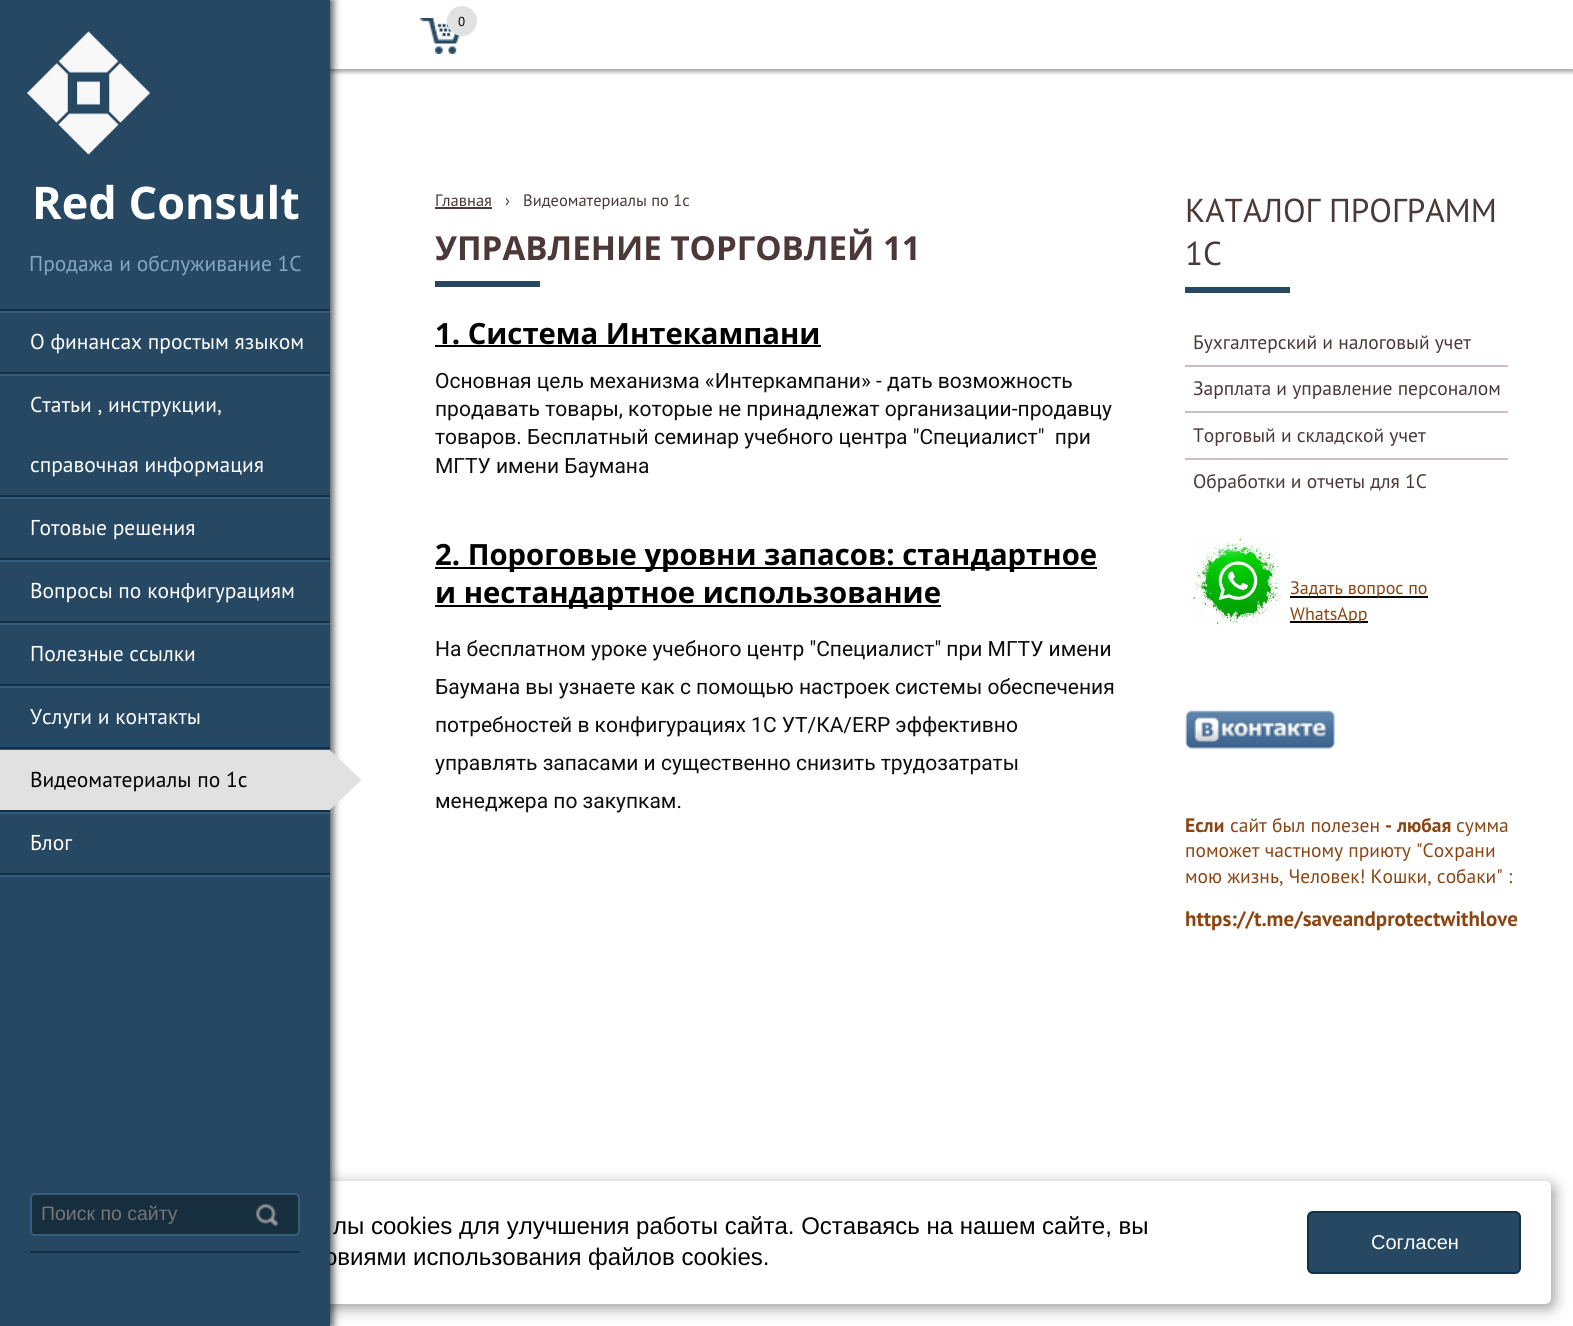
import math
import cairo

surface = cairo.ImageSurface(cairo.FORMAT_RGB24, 1573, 1326)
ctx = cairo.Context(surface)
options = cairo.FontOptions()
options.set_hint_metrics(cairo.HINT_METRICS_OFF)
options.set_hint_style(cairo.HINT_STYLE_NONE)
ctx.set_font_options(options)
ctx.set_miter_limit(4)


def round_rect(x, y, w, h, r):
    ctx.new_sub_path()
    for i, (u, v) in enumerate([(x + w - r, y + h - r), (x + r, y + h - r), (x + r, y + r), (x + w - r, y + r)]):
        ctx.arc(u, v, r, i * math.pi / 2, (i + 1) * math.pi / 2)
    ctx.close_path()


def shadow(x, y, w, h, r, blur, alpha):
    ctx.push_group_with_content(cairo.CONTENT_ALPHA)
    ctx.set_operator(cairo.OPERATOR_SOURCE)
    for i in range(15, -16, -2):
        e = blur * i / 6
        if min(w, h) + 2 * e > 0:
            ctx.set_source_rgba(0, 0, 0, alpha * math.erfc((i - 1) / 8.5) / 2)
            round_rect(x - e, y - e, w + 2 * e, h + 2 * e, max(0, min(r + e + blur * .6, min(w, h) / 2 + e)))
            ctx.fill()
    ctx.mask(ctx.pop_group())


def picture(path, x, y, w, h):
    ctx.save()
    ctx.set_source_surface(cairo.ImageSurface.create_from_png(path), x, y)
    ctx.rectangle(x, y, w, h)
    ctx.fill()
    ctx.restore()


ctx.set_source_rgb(1, 1, 1)
ctx.paint()
ctx.save()
ctx.rectangle(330, 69, 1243, 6)
ctx.clip()
ctx.set_source_rgb(0, 0, 0)
shadow(0, 3, 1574, 69, 0, 2, 0.35)
ctx.restore()
picture("img1.png", 420, 18, 41, 36)
ctx.set_source_rgb(0.882, 0.882, 0.882)
ctx.arc(462, 21, 15, 0, 2 * math.pi)
ctx.fill()
ctx.select_font_face("PT Sans")
ctx.set_font_size(13)
ctx.set_source_rgb(0, 0, 0)
ctx.move_to(458, 26)
ctx.show_text("0")
ctx.set_source_rgb(0, 0, 0)
shadow(78, 1185, 1476, 123, 6, 7.5, 0.4)
ctx.set_source_rgb(1, 1, 1)
round_rect(75, 1181, 1476, 123, 6)
ctx.fill()
ctx.set_source_rgb(0, 0, 0)
shadow(3, 0, 330, 1326, 0, 4, 0.7)
ctx.select_font_face("Liberation Sans")
ctx.set_font_size(24)
ctx.set_source_rgb(0, 0, 0)
ctx.move_to(324, 1265)
ctx.show_text("овиями использования файлов cookies.")
ctx.set_source_rgb(0.149, 0.282, 0.388)
ctx.rectangle(0, 0, 330, 1326)
ctx.fill()
picture("img2.png", 27, 31, 123, 124)
ctx.select_font_face("Open Sans", cairo.FONT_SLANT_NORMAL, cairo.FONT_WEIGHT_BOLD)
ctx.set_font_size(45)
ctx.set_source_rgb(1, 1, 1)
ctx.move_to(32, 219)
ctx.show_text("Red Consult")
ctx.select_font_face("PT Sans")
ctx.set_font_size(21.5)
ctx.set_source_rgb(0.514, 0.659, 0.773)
ctx.move_to(29, 271)
ctx.show_text("Продажа и обслуживание 1С")
ctx.set_source_rgb(0.082, 0.188, 0.275)
ctx.rectangle(0, 309, 330, 2)
ctx.fill()
ctx.set_source_rgb(0.2, 0.365, 0.498)
ctx.rectangle(0, 875, 330, 2)
ctx.fill()
ctx.rectangle(0, 311, 330, 2)
ctx.fill()
ctx.set_source_rgb(0.082, 0.188, 0.275)
ctx.rectangle(0, 372, 330, 2)
ctx.fill()
ctx.set_source_rgb(1, 1, 1)
ctx.move_to(30, 349)
ctx.show_text("О финансах простым языком")
ctx.set_source_rgb(0.2, 0.365, 0.498)
ctx.rectangle(0, 374, 330, 2)
ctx.fill()
ctx.set_source_rgb(0.082, 0.188, 0.275)
ctx.rectangle(0, 495, 330, 2)
ctx.fill()
ctx.set_source_rgb(1, 1, 1)
ctx.move_to(30, 412)
ctx.show_text("Статьи , инструкции,")
ctx.move_to(30, 472)
ctx.show_text("справочная информация")
ctx.set_source_rgb(0.2, 0.365, 0.498)
ctx.rectangle(0, 497, 330, 2)
ctx.fill()
ctx.set_source_rgb(0.082, 0.188, 0.275)
ctx.rectangle(0, 558, 330, 2)
ctx.fill()
ctx.set_source_rgb(1, 1, 1)
ctx.move_to(30, 535)
ctx.show_text("Готовые решения")
ctx.set_source_rgb(0.2, 0.365, 0.498)
ctx.rectangle(0, 560, 330, 2)
ctx.fill()
ctx.set_source_rgb(0.082, 0.188, 0.275)
ctx.rectangle(0, 621, 330, 2)
ctx.fill()
ctx.set_source_rgb(1, 1, 1)
ctx.move_to(30, 598)
ctx.show_text("Вопросы по конфигурациям")
ctx.set_source_rgb(0.2, 0.365, 0.498)
ctx.rectangle(0, 623, 330, 2)
ctx.fill()
ctx.set_source_rgb(0.082, 0.188, 0.275)
ctx.rectangle(0, 684, 330, 2)
ctx.fill()
ctx.set_source_rgb(1, 1, 1)
ctx.move_to(30, 661)
ctx.show_text("Полезные ссылки")
ctx.set_source_rgb(0.2, 0.365, 0.498)
ctx.rectangle(0, 686, 330, 2)
ctx.fill()
ctx.set_source_rgb(0.082, 0.188, 0.275)
ctx.rectangle(0, 747, 330, 2)
ctx.fill()
ctx.set_source_rgb(1, 1, 1)
ctx.move_to(30, 724)
ctx.show_text("Услуги и контакты")
ctx.set_source_rgb(0.2, 0.365, 0.498)
ctx.rectangle(0, 749, 330, 1)
ctx.fill()
ctx.set_source_rgb(0.082, 0.188, 0.275)
ctx.rectangle(0, 810, 330, 2)
ctx.fill()
ctx.set_source_rgb(0.882, 0.882, 0.882)
ctx.rectangle(0, 750, 330, 60)
ctx.fill()
ctx.set_source_rgb(0, 0, 0)
ctx.move_to(30, 787)
ctx.show_text("Видеоматериалы по 1с")
gradient = cairo.LinearGradient(331, 781, 361, 749)
gradient.add_color_stop_rgba(0.3, 0.882, 0.882, 0.882, 1)
gradient.add_color_stop_rgba(0.48, 0.882, 0.882, 0.882, 1)
gradient.add_color_stop_rgba(0.51, 0.882, 0.882, 0.882, 0)
ctx.set_source(gradient)
ctx.rectangle(330, 750, 32, 30)
ctx.fill()
gradient = cairo.LinearGradient(331, 779, 361, 811)
gradient.add_color_stop_rgba(0.3, 0.882, 0.882, 0.882, 1)
gradient.add_color_stop_rgba(0.48, 0.882, 0.882, 0.882, 1)
gradient.add_color_stop_rgba(0.51, 0.882, 0.882, 0.882, 0)
ctx.set_source(gradient)
ctx.rectangle(330, 780, 32, 30)
ctx.fill()
ctx.set_source_rgb(0.2, 0.365, 0.498)
ctx.rectangle(0, 812, 330, 2)
ctx.fill()
ctx.set_source_rgb(0.082, 0.188, 0.275)
ctx.rectangle(0, 873, 330, 2)
ctx.fill()
ctx.set_source_rgb(1, 1, 1)
ctx.move_to(30, 850)
ctx.show_text("Блог")
ctx.set_source_rgb(0.09, 0.18, 0.247)
round_rect(31, 1194, 268, 41, 4)
ctx.fill_preserve()
ctx.set_source_rgb(0.2, 0.365, 0.498)
ctx.stroke()
ctx.select_font_face("Liberation Sans")
ctx.set_font_size(19.5)
ctx.set_source_rgb(0.459, 0.459, 0.459)
ctx.move_to(41, 1220)
ctx.show_text("Поиск по сайту")
picture("img3.png", 256, 1204, 22, 22)
ctx.set_source_rgb(0.082, 0.188, 0.275)
ctx.rectangle(30, 1251, 270, 2)
ctx.fill()
ctx.select_font_face("PT Sans")
ctx.set_font_size(16.5)
ctx.set_source_rgb(0.298, 0.22, 0.22)
ctx.move_to(435, 206)
ctx.show_text("Главная")
ctx.rectangle(435, 207, 57, 2)
ctx.fill()
ctx.move_to(505, 206)
ctx.show_text("›")
ctx.move_to(523, 206)
ctx.show_text("Видеоматериалы по 1с")
ctx.select_font_face("Open Sans", cairo.FONT_SLANT_NORMAL, cairo.FONT_WEIGHT_BOLD)
ctx.set_font_size(33.1)
ctx.move_to(435, 260)
ctx.show_text("УПРАВЛЕНИЕ ТОРГОВЛЕЙ 11")
ctx.set_source_rgb(0.149, 0.282, 0.388)
ctx.rectangle(435, 281, 105, 6)
ctx.fill()
ctx.set_font_size(29.25)
ctx.set_source_rgb(0, 0, 0)
ctx.move_to(435, 344)
ctx.show_text("1. Система Интекампани")
ctx.rectangle(435, 345, 386, 2)
ctx.fill()
ctx.select_font_face("Roboto")
ctx.set_font_size(21)
ctx.set_source_rgb(0.051, 0.051, 0.051)
ctx.move_to(435, 388)
ctx.show_text("Основная цель механизма «Интеркампани» - дать возможность")
ctx.move_to(435, 416)
ctx.show_text("продавать товары, которые не принадлежат организации-продавцу")
ctx.move_to(435, 444)
ctx.show_text("товаров. Бесплатный семинар учебного центра \"Специалист\"  при")
ctx.move_to(435, 473)
ctx.show_text("МГТУ имени Баумана")
ctx.set_source_rgb(0, 0, 0)
ctx.rectangle(435, 567, 662, 2)
ctx.fill()
ctx.select_font_face("Open Sans", cairo.FONT_SLANT_NORMAL, cairo.FONT_WEIGHT_BOLD)
ctx.set_font_size(29.25)
ctx.move_to(435, 565)
ctx.show_text("2. Пороговые уровни запасов: стандартное")
ctx.rectangle(435, 605, 506, 2)
ctx.fill()
ctx.move_to(435, 603)
ctx.show_text("и нестандартное использование")
ctx.select_font_face("Roboto")
ctx.set_font_size(21)
ctx.set_source_rgb(0.051, 0.051, 0.051)
ctx.move_to(435, 656)
ctx.show_text("На бесплатном уроке учебного центр \"Специалист\" при МГТУ имени")
ctx.move_to(435, 694)
ctx.show_text("Баумана вы узнаете как с помощью настроек системы обеспечения")
ctx.move_to(435, 732)
ctx.show_text("потребностей в конфигурациях 1C УТ/КА/ERP эффективно")
ctx.move_to(435, 770)
ctx.show_text("управлять запасами и существенно снизить трудозатраты")
ctx.move_to(435, 808)
ctx.show_text("менеджера по закупкам.")
ctx.select_font_face("PT Sans")
ctx.set_font_size(33.1)
ctx.set_source_rgb(0.298, 0.22, 0.22)
ctx.move_to(1185, 222)
ctx.show_text("КАТАЛОГ ПРОГРАММ")
ctx.move_to(1185, 265)
ctx.show_text("1С")
ctx.set_source_rgb(0.149, 0.282, 0.388)
ctx.rectangle(1185, 287, 105, 6)
ctx.fill()
ctx.set_source_rgb(0.8, 0.741, 0.776)
ctx.rectangle(1185, 365, 323, 2)
ctx.fill()
ctx.set_font_size(19.5)
ctx.set_source_rgb(0.298, 0.22, 0.22)
ctx.move_to(1193, 349)
ctx.show_text("Бухгалтерский и налоговый учет")
ctx.set_source_rgb(0.8, 0.741, 0.776)
ctx.rectangle(1185, 411, 323, 2)
ctx.fill()
ctx.set_source_rgb(0.298, 0.22, 0.22)
ctx.move_to(1193, 395)
ctx.show_text("Зарплата и управление персоналом")
ctx.set_source_rgb(0.8, 0.741, 0.776)
ctx.rectangle(1185, 458, 323, 2)
ctx.fill()
ctx.set_source_rgb(0.298, 0.22, 0.22)
ctx.move_to(1193, 442)
ctx.show_text("Торговый и складской учет")
ctx.move_to(1193, 488)
ctx.show_text("Обработки и отчеты для 1С")
picture("img4.png", 1192, 537, 89, 88)
ctx.set_source_rgb(0, 0, 0)
ctx.rectangle(1290, 596, 138, 2)
ctx.fill()
ctx.set_font_size(18)
ctx.set_source_rgb(0.545, 0.271, 0.075)
ctx.move_to(1290, 594)
ctx.show_text("Задать вопрос по")
ctx.set_source_rgb(0, 0, 0)
ctx.rectangle(1290, 621, 78, 2)
ctx.fill()
ctx.set_source_rgb(0.545, 0.271, 0.075)
ctx.move_to(1290, 620)
ctx.show_text("WhatsApp")
picture("img5.png", 1185, 710, 150, 39)
ctx.select_font_face("PT Sans", cairo.FONT_SLANT_NORMAL, cairo.FONT_WEIGHT_BOLD)
ctx.set_font_size(19.5)
ctx.move_to(1185, 832)
ctx.show_text("Если")
ctx.select_font_face("PT Sans")
ctx.move_to(1230, 832)
ctx.show_text("сайт был полезен")
ctx.select_font_face("PT Sans", cairo.FONT_SLANT_NORMAL, cairo.FONT_WEIGHT_BOLD)
ctx.move_to(1385, 832)
ctx.show_text("- любая")
ctx.select_font_face("PT Sans")
ctx.move_to(1456, 832)
ctx.show_text("сумма")
ctx.move_to(1185, 857)
ctx.show_text("поможет частному приюту \"Сохрани")
ctx.move_to(1185, 883)
ctx.show_text("мою жизнь, Человек! Кошки, собаки\" :")
ctx.select_font_face("PT Sans", cairo.FONT_SLANT_NORMAL, cairo.FONT_WEIGHT_BOLD)
ctx.set_font_size(21)
ctx.move_to(1185, 926)
ctx.show_text("https://t.me/saveandprotectwithlove")
ctx.select_font_face("Liberation Sans")
ctx.set_font_size(24)
ctx.set_source_rgb(0, 0, 0)
ctx.move_to(333, 1234)
ctx.show_text("лы cookies для улучшения работы сайта. Оставаясь на нашем сайте, вы")
ctx.set_source_rgb(0.149, 0.282, 0.388)
round_rect(1308, 1212, 212, 61, 5)
ctx.fill_preserve()
ctx.set_source_rgb(0.082, 0.188, 0.275)
ctx.stroke()
ctx.set_font_size(20)
ctx.set_source_rgb(1, 1, 1)
ctx.move_to(1371, 1249)
ctx.show_text("Согласен")
surface.write_to_png("page.png")
